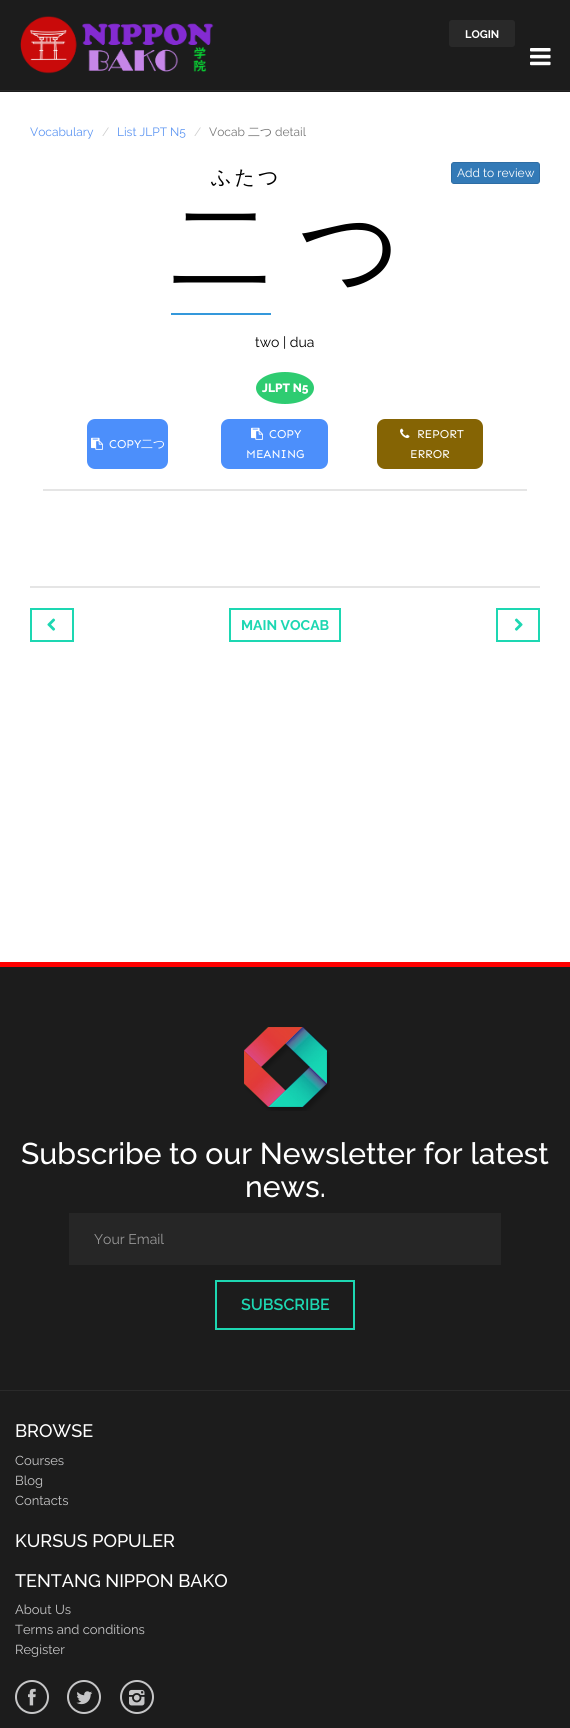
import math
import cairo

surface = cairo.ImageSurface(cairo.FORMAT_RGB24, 570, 1728)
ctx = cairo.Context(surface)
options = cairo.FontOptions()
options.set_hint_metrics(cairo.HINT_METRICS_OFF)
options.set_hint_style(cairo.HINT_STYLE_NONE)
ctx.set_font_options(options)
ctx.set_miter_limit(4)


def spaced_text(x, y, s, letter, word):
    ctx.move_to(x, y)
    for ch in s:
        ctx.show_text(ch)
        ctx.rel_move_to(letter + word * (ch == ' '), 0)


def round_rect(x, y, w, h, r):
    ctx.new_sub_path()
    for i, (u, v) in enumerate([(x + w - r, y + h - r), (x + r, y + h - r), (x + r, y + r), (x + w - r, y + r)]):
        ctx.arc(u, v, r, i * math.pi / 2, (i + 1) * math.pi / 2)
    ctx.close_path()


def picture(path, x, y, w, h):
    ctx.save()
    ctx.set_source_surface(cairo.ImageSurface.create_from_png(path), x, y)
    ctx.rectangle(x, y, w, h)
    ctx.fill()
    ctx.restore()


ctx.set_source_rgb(1, 1, 1)
ctx.paint()
ctx.set_source_rgb(0.11, 0.11, 0.11)
ctx.rectangle(0, 0, 570, 90)
ctx.fill()
ctx.set_source_rgb(0.153, 0.153, 0.153)
ctx.rectangle(0, 90, 570, 1)
ctx.fill()
picture("img1.png", 20, 16, 194, 58)
ctx.set_source_rgb(0.161, 0.161, 0.161)
round_rect(449, 20, 66, 27, 3)
ctx.fill()
ctx.select_font_face("Raleway", cairo.FONT_SLANT_NORMAL, cairo.FONT_WEIGHT_BOLD)
ctx.set_font_size(11)
ctx.set_source_rgb(1, 1, 1)
ctx.move_to(465, 38)
ctx.show_text("LOGIN")
ctx.set_source_rgb(0.11, 0.11, 0.11)
ctx.rectangle(0, 91, 570, 1)
ctx.fill()
picture("img2.png", 530, 48, 21, 18)
ctx.select_font_face("Raleway")
ctx.set_font_size(12)
ctx.set_source_rgb(0.361, 0.584, 0.949)
ctx.move_to(30, 136)
ctx.show_text("Vocabulary")
ctx.set_source_rgb(0.8, 0.8, 0.8)
ctx.move_to(102, 136)
ctx.show_text("/")
ctx.set_source_rgb(0.361, 0.584, 0.949)
ctx.move_to(117, 136)
ctx.show_text("List JLPT N5")
ctx.set_source_rgb(0.8, 0.8, 0.8)
ctx.move_to(194, 136)
ctx.show_text("/")
ctx.set_source_rgb(0.467, 0.467, 0.467)
ctx.move_to(209, 136)
ctx.show_text("Vocab")
ctx.select_font_face("WenQuanYi Zen Hei Medium")
ctx.move_to(248, 136)
ctx.show_text("二つ")
ctx.select_font_face("Raleway")
ctx.move_to(275, 136)
ctx.show_text("detail")
ctx.select_font_face("WenQuanYi Zen Hei Medium")
ctx.set_font_size(20)
ctx.set_source_rgb(0, 0, 0)
spaced_text(211, 184, "ふたつ", 3, 0)
ctx.set_font_size(100)
ctx.move_to(171, 282)
ctx.show_text("二")
ctx.set_source_rgb(0.204, 0.596, 0.859)
ctx.rectangle(171, 313, 100, 2)
ctx.fill()
ctx.set_source_rgb(0, 0, 0)
ctx.move_to(299, 282)
ctx.show_text("つ")
ctx.select_font_face("Raleway")
ctx.set_font_size(14)
ctx.move_to(255, 347)
ctx.show_text("two | dua")
ctx.set_source_rgb(0.18, 0.8, 0.443)
ctx.new_path()
ctx.move_to(285, 372)
ctx.curve_to(301, 372, 314, 379, 314, 388)
ctx.curve_to(314, 397, 301, 404, 285, 404)
ctx.curve_to(269, 404, 256, 397, 256, 388)
ctx.curve_to(256, 379, 269, 372, 285, 372)
ctx.close_path()
ctx.fill()
ctx.select_font_face("Raleway ExtraBold")
ctx.set_font_size(12)
ctx.set_source_rgb(1, 1, 1)
ctx.move_to(262, 392)
ctx.show_text("JLPT N5")
ctx.set_source_rgb(0.298, 0.561, 0.984)
round_rect(88, 420, 79, 48, 7)
ctx.fill_preserve()
ctx.stroke()
picture("img3.png", 91, 437, 12, 13)
ctx.select_font_face("Sen")
ctx.set_source_rgb(1, 1, 1)
ctx.move_to(109, 448)
ctx.show_text("COPY")
ctx.select_font_face("WenQuanYi Zen Hei Medium")
ctx.move_to(141, 448)
ctx.show_text("二つ")
ctx.set_source_rgb(0.298, 0.561, 0.984)
round_rect(222, 420, 105, 48, 7)
ctx.fill_preserve()
ctx.stroke()
picture("img3.png", 251, 427, 12, 13)
ctx.select_font_face("Sen")
ctx.set_source_rgb(1, 1, 1)
ctx.move_to(269, 438)
ctx.show_text("COPY")
ctx.move_to(246, 458)
ctx.show_text("MEANING")
ctx.set_source_rgb(0.522, 0.392, 0.016)
round_rect(378, 420, 104, 48, 7)
ctx.fill_preserve()
ctx.stroke()
picture("img4.png", 400, 428, 10, 11)
ctx.set_source_rgb(1, 1, 1)
ctx.move_to(417, 438)
ctx.show_text("REPORT")
ctx.move_to(410, 458)
ctx.show_text("ERROR")
ctx.set_source_rgb(0.898, 0.898, 0.898)
ctx.rectangle(43, 489, 484, 2)
ctx.fill()
ctx.set_source_rgb(0.2, 0.478, 0.718)
round_rect(451.5, 162.5, 88, 21, 2.5)
ctx.fill_preserve()
ctx.set_source_rgb(0.18, 0.427, 0.643)
ctx.set_line_width(1)
ctx.stroke()
ctx.select_font_face("Raleway")
ctx.set_source_rgb(1, 1, 1)
ctx.move_to(457, 177)
ctx.show_text("Add to review")
ctx.set_source_rgb(0.898, 0.898, 0.898)
ctx.rectangle(30, 586, 510, 2)
ctx.fill()
ctx.rectangle(31, 609, 42, 32)
ctx.set_source_rgb(0.114, 0.843, 0.698)
ctx.set_line_width(2)
ctx.stroke()
picture("img5.png", 47, 618, 9, 13)
ctx.rectangle(230, 609, 110, 32)
ctx.stroke()
ctx.select_font_face("Raleway", cairo.FONT_SLANT_NORMAL, cairo.FONT_WEIGHT_BOLD)
ctx.set_font_size(14)
ctx.move_to(241, 630)
ctx.show_text("MAIN VOCAB")
ctx.rectangle(497, 609, 42, 32)
ctx.stroke()
picture("img6.png", 514, 618, 9, 13)
ctx.set_source_rgb(1, 0, 0)
ctx.rectangle(0, 962, 570, 5)
ctx.fill()
ctx.set_source_rgb(0.11, 0.11, 0.11)
ctx.rectangle(0, 967, 570, 761)
ctx.fill()
picture("img7.png", 244, 1027, 86, 84)
ctx.select_font_face("Raleway Medium")
ctx.set_font_size(30)
ctx.set_source_rgb(1, 1, 1)
ctx.move_to(21, 1164)
ctx.show_text("Subscribe to our Newsletter for latest")
ctx.move_to(245, 1197)
ctx.show_text("news.")
ctx.set_source_rgb(0.149, 0.149, 0.149)
ctx.rectangle(69, 1213, 432, 52)
ctx.fill()
ctx.select_font_face("Raleway")
ctx.set_font_size(14)
ctx.set_source_rgb(0.6, 0.6, 0.6)
ctx.move_to(94, 1244)
ctx.show_text("Your Email")
ctx.rectangle(216, 1281, 138, 48)
ctx.set_source_rgb(0.114, 0.843, 0.698)
ctx.stroke()
ctx.select_font_face("Raleway SemiBold")
ctx.set_font_size(16)
ctx.move_to(241, 1310)
ctx.show_text("SUBSCRIBE")
ctx.set_source_rgb(0.165, 0.165, 0.165)
ctx.rectangle(0, 1390, 570, 1)
ctx.fill()
ctx.select_font_face("Raleway Medium")
ctx.set_font_size(18)
ctx.set_source_rgb(1, 1, 1)
ctx.move_to(15, 1437)
ctx.show_text("BROWSE")
ctx.select_font_face("Raleway")
ctx.set_font_size(13)
ctx.set_source_rgb(0.776, 0.776, 0.78)
ctx.move_to(15, 1465)
ctx.show_text("Courses")
ctx.move_to(15, 1485)
ctx.show_text("Blog")
ctx.move_to(15, 1505)
ctx.show_text("Contacts")
ctx.select_font_face("Raleway Medium")
ctx.set_font_size(18)
ctx.set_source_rgb(1, 1, 1)
ctx.move_to(15, 1547)
ctx.show_text("KURSUS POPULER")
ctx.move_to(15, 1587)
ctx.show_text("TENTANG NIPPON BAKO")
ctx.select_font_face("Raleway")
ctx.set_font_size(13)
ctx.set_source_rgb(0.776, 0.776, 0.78)
ctx.move_to(15, 1614)
ctx.show_text("About Us")
ctx.move_to(15, 1634)
ctx.show_text("Terms and conditions")
ctx.move_to(15, 1654)
ctx.show_text("Register")
ctx.new_path()
ctx.arc(32, 1697, 16, 0, 2 * math.pi)
ctx.stroke()
picture("img8.png", 28, 1688, 8, 18)
ctx.arc(84, 1697, 16, 0, 2 * math.pi)
ctx.stroke()
picture("img9.png", 76, 1691, 17, 14)
ctx.arc(137, 1697, 16, 0, 2 * math.pi)
ctx.stroke()
picture("img10.png", 129, 1689, 16, 17)
surface.write_to_png("page.png")
